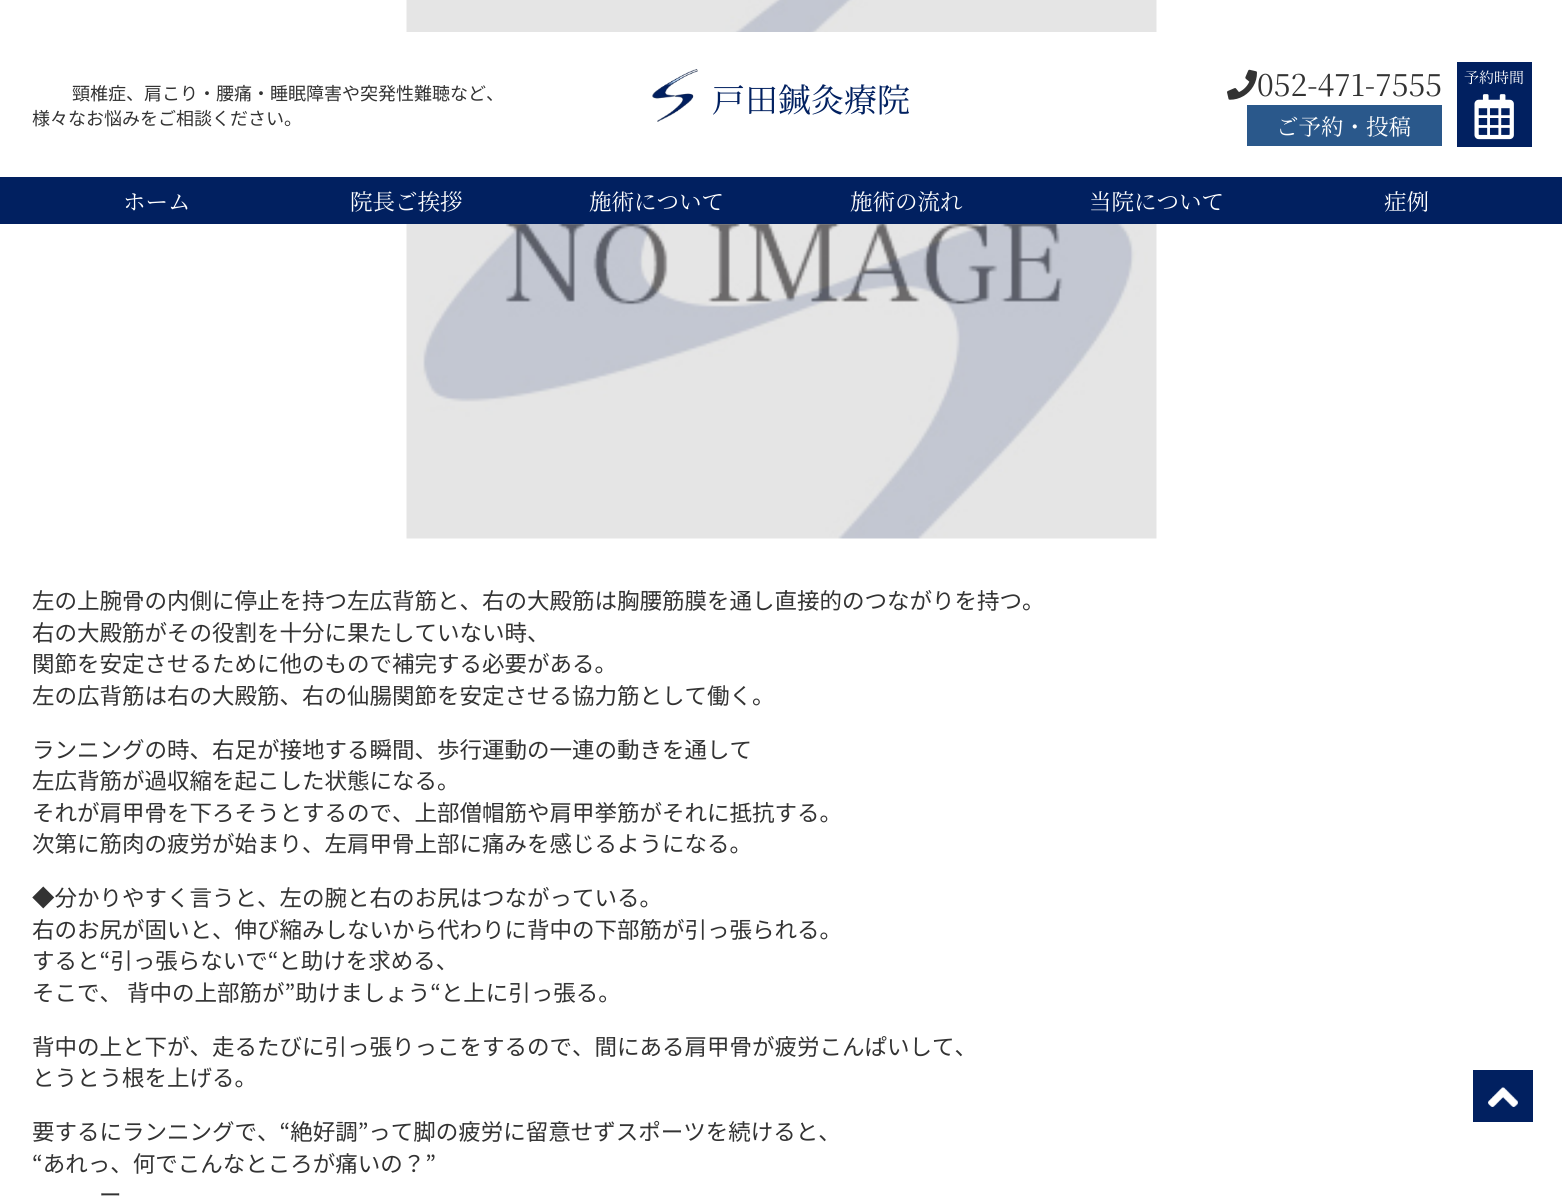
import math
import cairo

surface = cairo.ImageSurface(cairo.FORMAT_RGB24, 1562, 1196)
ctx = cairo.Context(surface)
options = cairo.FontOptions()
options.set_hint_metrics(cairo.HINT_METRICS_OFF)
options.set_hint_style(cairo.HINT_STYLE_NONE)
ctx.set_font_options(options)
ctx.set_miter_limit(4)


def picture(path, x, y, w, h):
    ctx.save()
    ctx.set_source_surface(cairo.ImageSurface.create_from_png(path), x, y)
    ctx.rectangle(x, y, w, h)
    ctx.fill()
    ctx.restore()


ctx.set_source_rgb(1, 1, 1)
ctx.paint()
picture("img4.png", 406, 0, 751, 539)
ctx.set_source_rgb(1, 1, 1)
ctx.rectangle(406, 32, 751, 145)
ctx.fill()
ctx.select_font_face("Noto Sans JP Thin")
ctx.set_font_size(18)
ctx.set_source_rgb(0.2, 0.2, 0.2)
ctx.move_to(72, 100)
ctx.show_text("頸椎症、肩こり・腰痛・睡眠障害や突発性難聴など、")
ctx.move_to(32, 125)
ctx.show_text("様々なお悩みをご相談ください。")
picture("img1.png", 1227, 69, 30, 31)
ctx.select_font_face("Noto Serif JP ExtraLight")
ctx.set_font_size(30)
ctx.move_to(1257, 96)
ctx.show_text("052-471-7555")
ctx.set_source_rgb(0.165, 0.345, 0.545)
ctx.rectangle(1247, 105, 195, 41)
ctx.fill()
ctx.set_font_size(22.5)
ctx.set_source_rgb(1, 1, 1)
ctx.move_to(1276, 135)
ctx.show_text("ご予約・投稿")
ctx.set_source_rgb(0.004, 0.125, 0.376)
ctx.rectangle(1457, 62, 75, 85)
ctx.fill()
ctx.set_font_size(15)
ctx.set_source_rgb(1, 1, 1)
ctx.move_to(1464, 83)
ctx.show_text("予約時間")
picture("img2.png", 1474, 94, 40, 46)
picture("img3.png", 652, 69, 46, 53)
ctx.set_font_size(33)
ctx.set_source_rgb(0.004, 0.125, 0.376)
ctx.move_to(712, 112)
ctx.show_text("戸田鍼灸療院")
ctx.rectangle(0, 177, 1562, 47)
ctx.fill()
ctx.set_font_size(22.5)
ctx.set_source_rgb(1, 1, 1)
ctx.move_to(123, 210)
ctx.show_text("ホーム")
ctx.move_to(350, 210)
ctx.show_text("院長ご挨拶")
ctx.move_to(589, 210)
ctx.show_text("施術について")
ctx.move_to(850, 210)
ctx.show_text("施術の流れ")
ctx.move_to(1089, 210)
ctx.show_text("当院について")
ctx.move_to(1384, 210)
ctx.show_text("症例")
ctx.select_font_face("Noto Sans JP Thin")
ctx.set_source_rgb(0.2, 0.2, 0.2)
ctx.move_to(32, 609)
ctx.show_text("左の上腕骨の内側に停止を持つ左広背筋と、右の大殿筋は胸腰筋膜を通し直接的のつながりを持つ。")
ctx.move_to(32, 641)
ctx.show_text("右の大殿筋がその役割を十分に果たしていない時、")
ctx.move_to(32, 672)
ctx.show_text("関節を安定させるために他のもので補完する必要がある。")
ctx.move_to(32, 704)
ctx.show_text("左の広背筋は右の大殿筋、右の仙腸関節を安定させる協力筋として働く。")
ctx.move_to(32, 758)
ctx.show_text("ランニングの時、右足が接地する瞬間、歩行運動の一連の動きを通して")
ctx.move_to(32, 789)
ctx.show_text("左広背筋が過収縮を起こした状態になる。")
ctx.move_to(32, 821)
ctx.show_text("それが肩甲骨を下ろそうとするので、上部僧帽筋や肩甲挙筋がそれに抵抗する。")
ctx.move_to(32, 852)
ctx.show_text("次第に筋肉の疲労が始まり、左肩甲骨上部に痛みを感じるようになる。")
ctx.move_to(32, 906)
ctx.show_text("◆分かりやすく言うと、左の腕と右のお尻はつながっている。")
ctx.move_to(32, 938)
ctx.show_text("右のお尻が固いと、伸び縮みしないから代わりに背中の下部筋が引っ張られる。")
ctx.move_to(32, 969)
ctx.show_text("すると“引っ張らないで“と助けを求める、")
ctx.move_to(32, 1001)
ctx.show_text("そこで、 背中の上部筋が”助けましょう“と上に引っ張る。")
ctx.move_to(32, 1055)
ctx.show_text("背中の上と下が、走るたびに引っ張りっこをするので、間にある肩甲骨が疲労こんぱいして、")
ctx.move_to(32, 1086)
ctx.show_text("とうとう根を上げる。")
ctx.move_to(32, 1140)
ctx.show_text("要するにランニングで、“絶好調”って脚の疲労に留意せずスポーツを続けると、")
ctx.move_to(32, 1172)
ctx.show_text("“あれっ、何でこんなところが痛いの？”")
ctx.move_to(99, 1203)
ctx.show_text("ー")
ctx.set_source_rgb(0.004, 0.125, 0.376)
ctx.rectangle(1473, 1070, 60, 52)
ctx.fill()
picture("img5.png", 1488, 1087, 30, 20)
surface.write_to_png("page.png")
